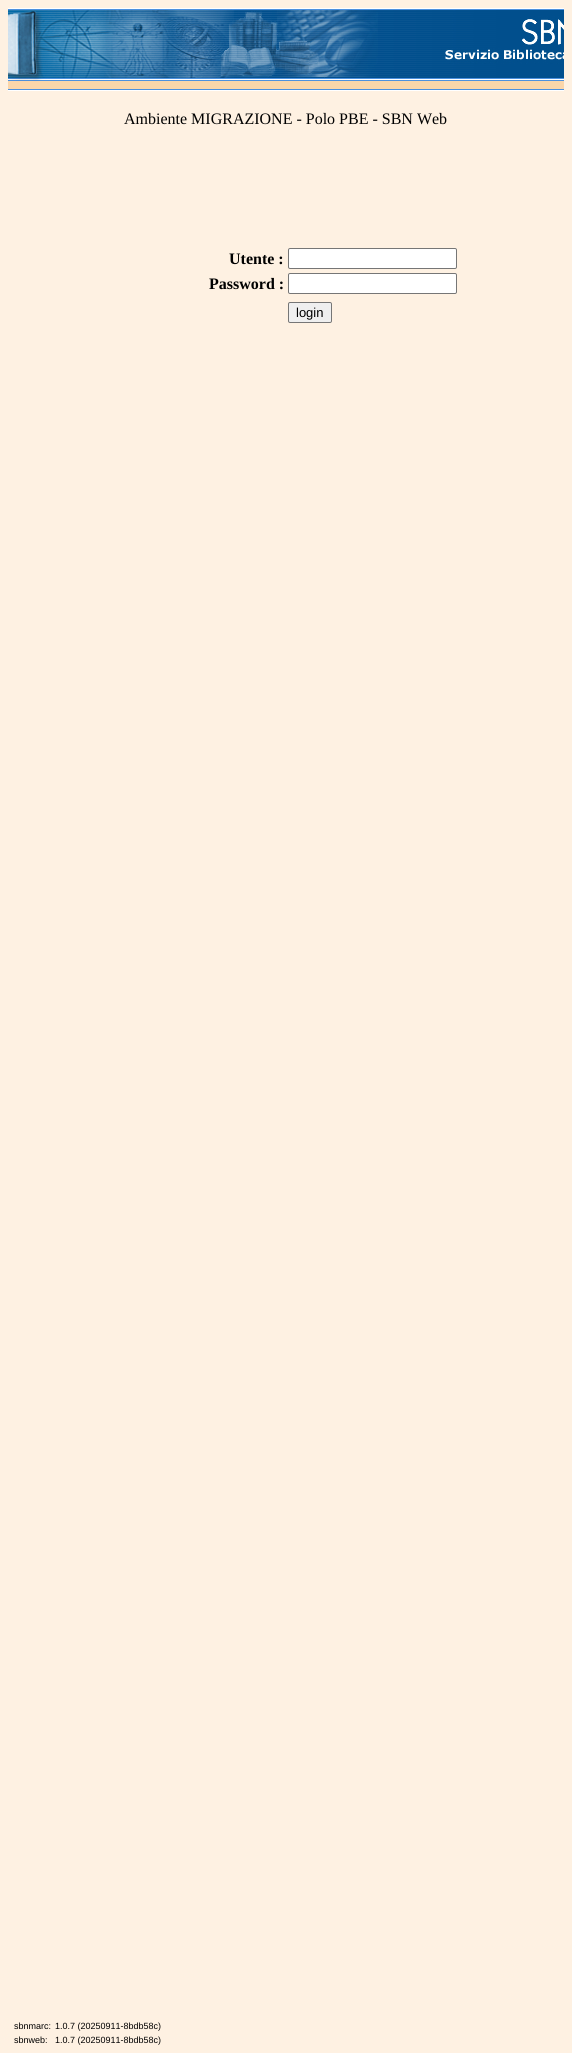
import math
import cairo

surface = cairo.ImageSurface(cairo.FORMAT_RGB24, 572, 2053)
ctx = cairo.Context(surface)
options = cairo.FontOptions()
options.set_hint_metrics(cairo.HINT_METRICS_OFF)
options.set_hint_style(cairo.HINT_STYLE_NONE)
ctx.set_font_options(options)
ctx.set_miter_limit(4)


def round_rect(x, y, w, h, r):
    ctx.new_sub_path()
    for i, (u, v) in enumerate([(x + w - r, y + h - r), (x + r, y + h - r), (x + r, y + r), (x + w - r, y + r)]):
        ctx.arc(u, v, r, i * math.pi / 2, (i + 1) * math.pi / 2)
    ctx.close_path()


def picture(path, x, y, w, h):
    ctx.save()
    ctx.set_source_surface(cairo.ImageSurface.create_from_png(path), x, y)
    ctx.rectangle(x, y, w, h)
    ctx.fill()
    ctx.restore()


ctx.set_source_rgb(0.996, 0.945, 0.886)
ctx.paint()
picture("img1.png", 8, 8, 556, 83)
ctx.select_font_face("Liberation Serif")
ctx.set_font_size(16)
ctx.set_source_rgb(0, 0, 0)
ctx.move_to(124, 124)
ctx.show_text("Ambiente MIGRAZIONE - Polo PBE - SBN Web")
ctx.select_font_face("Liberation Serif", cairo.FONT_SLANT_NORMAL, cairo.FONT_WEIGHT_BOLD)
ctx.move_to(229, 264)
ctx.show_text("Utente :")
ctx.set_source_rgb(1, 1, 1)
round_rect(288.5, 248.5, 168, 20, 1.5)
ctx.fill_preserve()
ctx.set_source_rgb(0.463, 0.463, 0.463)
ctx.set_line_width(1)
ctx.stroke()
ctx.set_source_rgb(0, 0, 0)
ctx.move_to(209, 289)
ctx.show_text("Password :")
ctx.set_source_rgb(1, 1, 1)
round_rect(288.5, 273.5, 168, 20, 1.5)
ctx.fill_preserve()
ctx.set_source_rgb(0.463, 0.463, 0.463)
ctx.stroke()
ctx.set_source_rgb(0.937, 0.937, 0.937)
round_rect(288.5, 302.5, 43, 20, 1.5)
ctx.fill_preserve()
ctx.set_source_rgb(0.463, 0.463, 0.463)
ctx.stroke()
ctx.select_font_face("Liberation Sans")
ctx.set_font_size(13)
ctx.set_source_rgb(0, 0, 0)
ctx.move_to(296, 317)
ctx.show_text("login")
ctx.set_font_size(9)
ctx.move_to(14, 2029)
ctx.show_text("sbnmarc:")
ctx.move_to(55, 2029)
ctx.show_text("1.0.7 (20250911-8bdb58c)")
ctx.move_to(14, 2043)
ctx.show_text("sbnweb:")
ctx.move_to(55, 2043)
ctx.show_text("1.0.7 (20250911-8bdb58c)")
surface.write_to_png("page.png")
